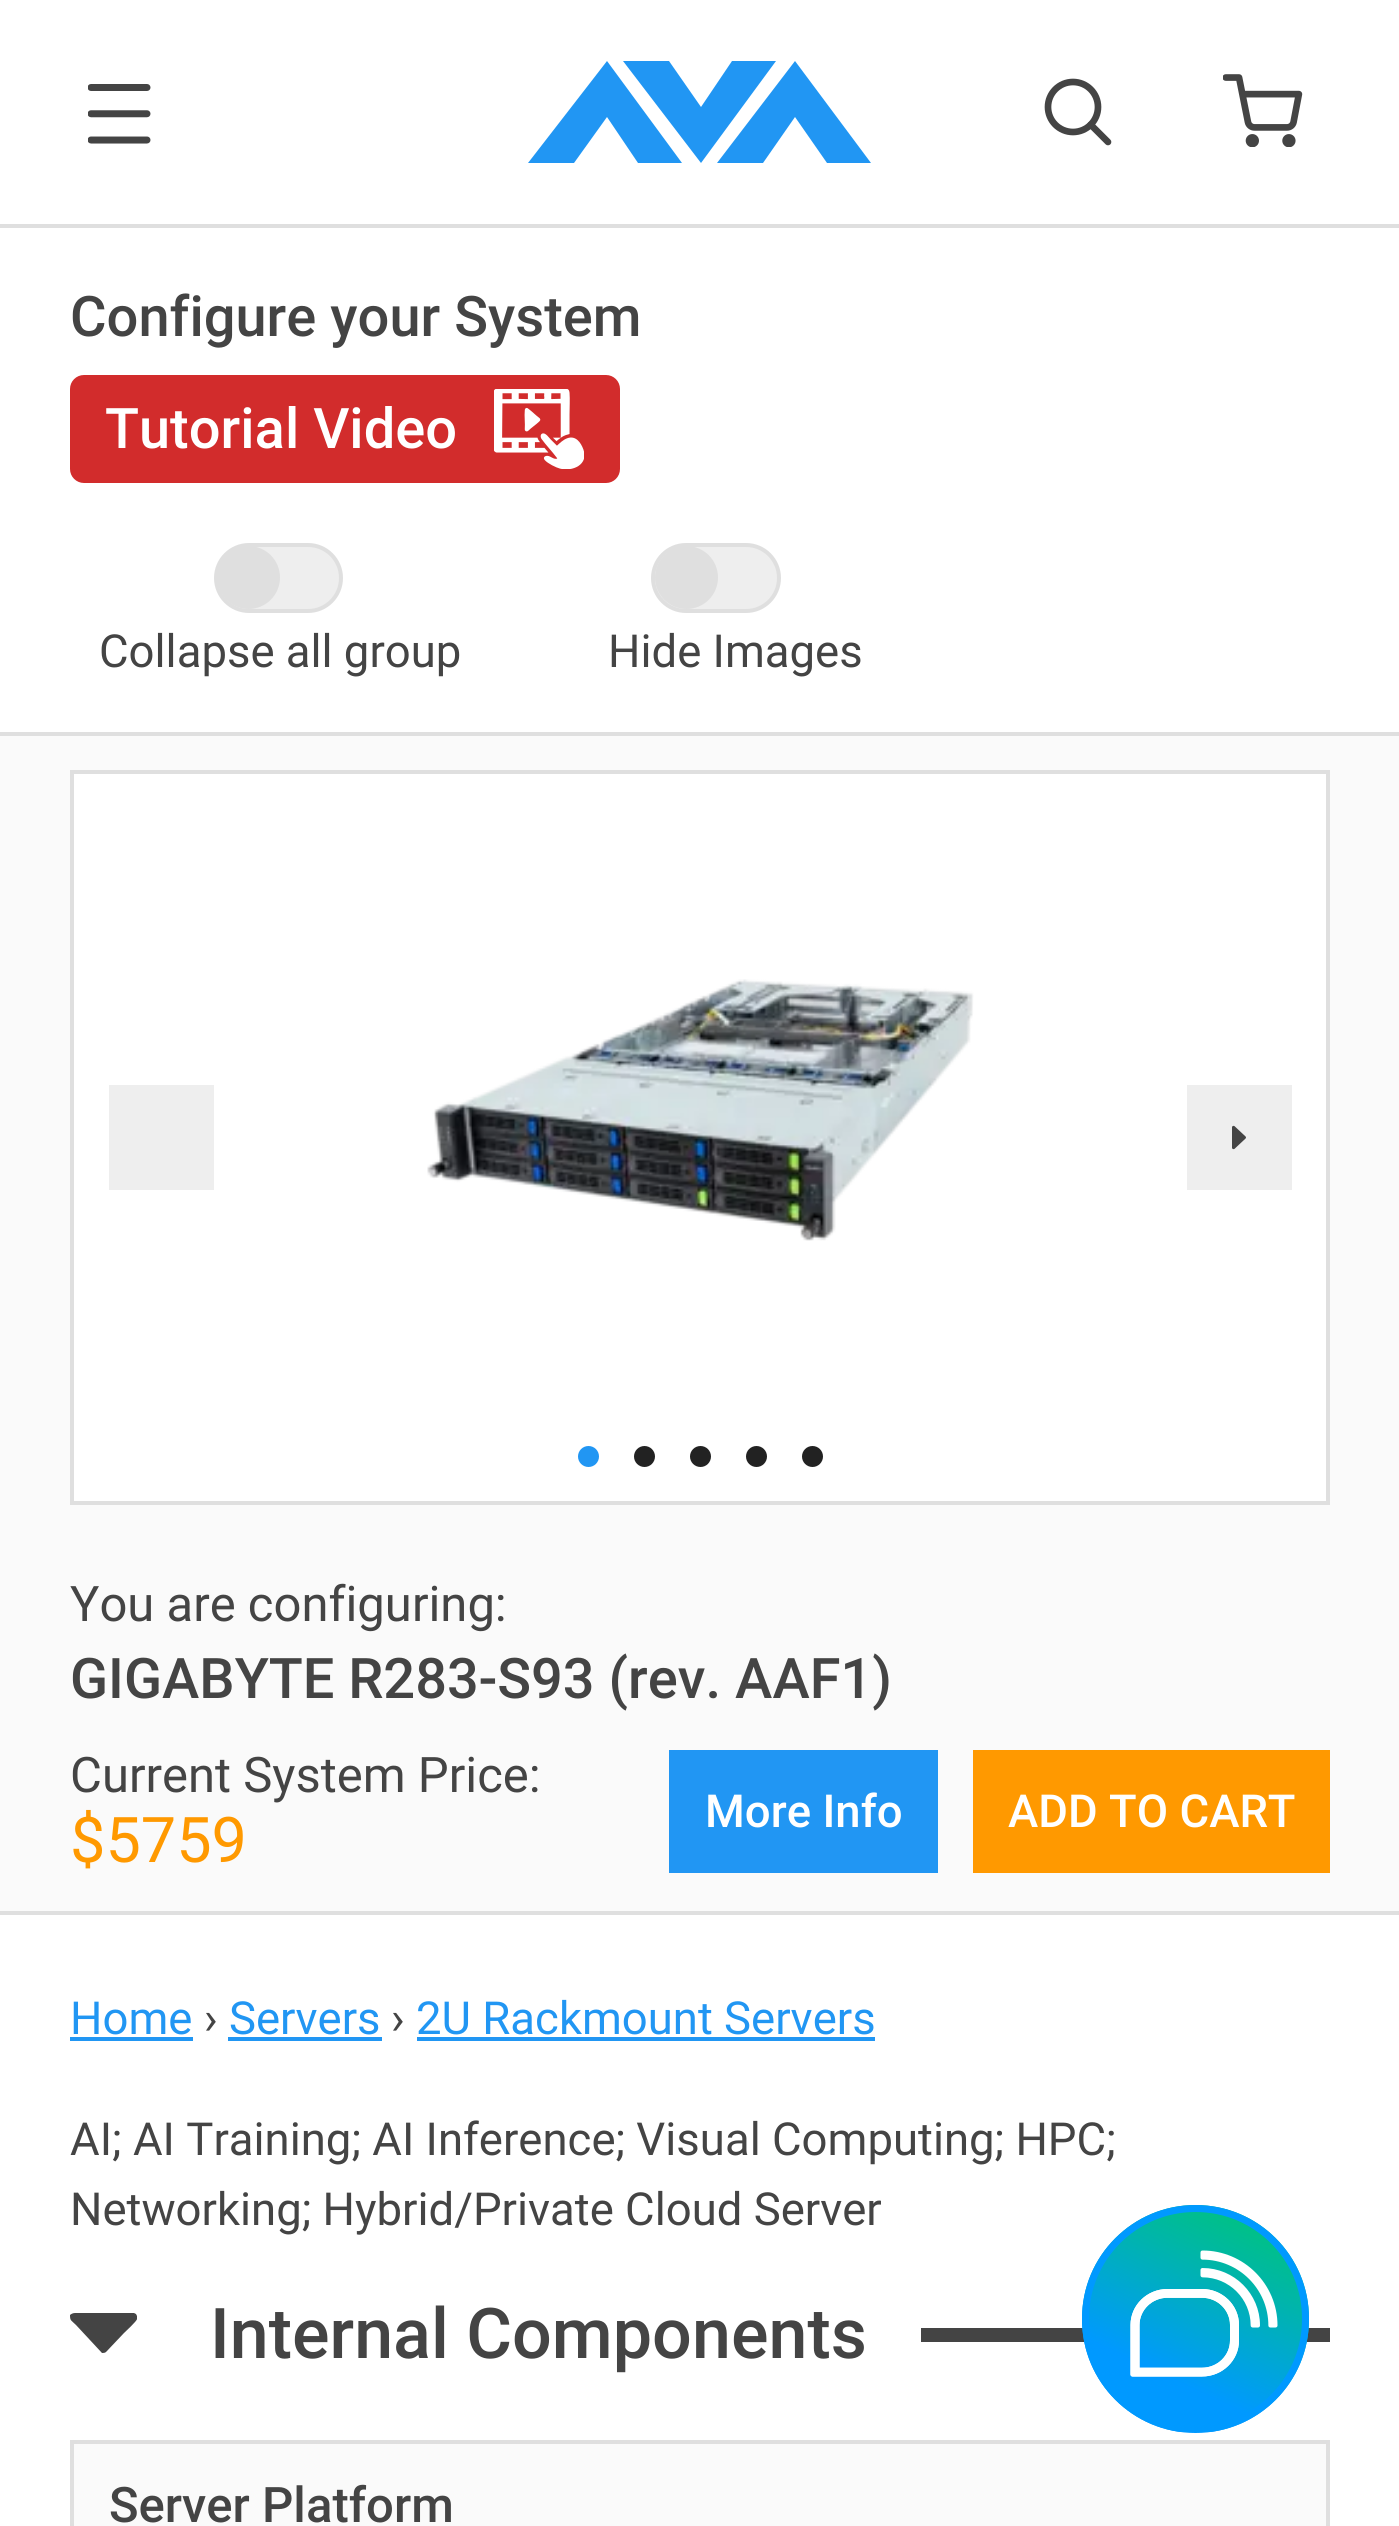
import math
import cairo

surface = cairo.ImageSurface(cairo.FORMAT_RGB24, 1399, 2526)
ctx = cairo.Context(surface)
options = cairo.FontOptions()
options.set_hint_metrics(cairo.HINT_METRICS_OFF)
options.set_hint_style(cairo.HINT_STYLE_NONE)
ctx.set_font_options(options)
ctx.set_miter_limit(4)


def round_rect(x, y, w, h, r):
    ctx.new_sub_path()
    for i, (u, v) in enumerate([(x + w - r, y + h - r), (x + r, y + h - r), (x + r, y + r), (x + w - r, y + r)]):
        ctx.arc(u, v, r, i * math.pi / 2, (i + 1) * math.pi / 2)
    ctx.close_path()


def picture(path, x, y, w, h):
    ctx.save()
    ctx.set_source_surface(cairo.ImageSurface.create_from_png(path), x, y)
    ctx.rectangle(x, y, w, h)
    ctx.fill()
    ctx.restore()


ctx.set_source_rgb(1, 1, 1)
ctx.paint()
ctx.set_source_rgb(0.875, 0.875, 0.875)
ctx.rectangle(0, 224, 1399, 4)
ctx.fill()
picture("img1.png", 88, 84, 63, 60)
ctx.set_source_rgb(0.129, 0.588, 0.953)
ctx.new_path()
ctx.move_to(638, 163)
ctx.line_to(682, 163)
ctx.line_to(607, 61)
ctx.line_to(528, 163)
ctx.line_to(574, 163)
ctx.line_to(607, 117)
ctx.close_path()
ctx.move_to(827, 163)
ctx.line_to(871, 163)
ctx.line_to(795, 61)
ctx.line_to(717, 163)
ctx.line_to(763, 163)
ctx.line_to(795, 117)
ctx.close_path()
ctx.move_to(732, 61)
ctx.line_to(776, 61)
ctx.line_to(701, 163)
ctx.line_to(623, 61)
ctx.line_to(669, 61)
ctx.line_to(701, 107)
ctx.close_path()
ctx.fill()
picture("img2.png", 1044, 78, 68, 68)
picture("img3.png", 1223, 74, 80, 73)
ctx.set_source_rgb(0.875, 0.875, 0.875)
ctx.rectangle(0, 732, 1399, 4)
ctx.fill()
ctx.select_font_face("Roboto Medium")
ctx.set_font_size(56)
ctx.set_source_rgb(0.267, 0.267, 0.267)
ctx.move_to(70, 336)
ctx.show_text("Configure your System")
ctx.set_source_rgb(0.824, 0.173, 0.173)
round_rect(70, 375, 550, 108, 14)
ctx.fill()
ctx.set_source_rgb(1, 1, 1)
ctx.move_to(105, 448)
ctx.show_text("Tutorial Video")
picture("img4.png", 494, 389, 90, 80)
ctx.set_source_rgb(0.933, 0.933, 0.933)
round_rect(216, 545, 125, 66, 33)
ctx.fill_preserve()
ctx.set_source_rgb(0.875, 0.875, 0.875)
ctx.set_line_width(4)
ctx.stroke()
ctx.arc(248.5, 577.5, 31.5, 0, 2 * math.pi)
ctx.fill()
ctx.select_font_face("Roboto")
ctx.set_font_size(45.5)
ctx.set_source_rgb(0.267, 0.267, 0.267)
ctx.move_to(99, 667)
ctx.show_text("Collapse all group")
ctx.set_source_rgb(0.933, 0.933, 0.933)
round_rect(653, 545, 126, 66, 33)
ctx.fill_preserve()
ctx.set_source_rgb(0.875, 0.875, 0.875)
ctx.stroke()
ctx.arc(686.5, 577.5, 31.5, 0, 2 * math.pi)
ctx.fill()
ctx.set_source_rgb(0.267, 0.267, 0.267)
ctx.move_to(608, 667)
ctx.show_text("Hide Images")
ctx.set_source_rgb(0.98, 0.98, 0.98)
ctx.rectangle(0, 736, 1399, 1175)
ctx.fill()
ctx.set_source_rgb(0.875, 0.875, 0.875)
ctx.rectangle(0, 1911, 1399, 4)
ctx.fill()
ctx.set_source_rgb(1, 1, 1)
ctx.rectangle(72, 772, 1256, 731)
ctx.fill_preserve()
ctx.set_source_rgb(0.875, 0.875, 0.875)
ctx.stroke()
ctx.set_source_rgb(0.933, 0.933, 0.933)
ctx.rectangle(109, 1085, 105, 105)
ctx.fill()
picture("img5.png", 427, 979, 547, 262)
ctx.rectangle(1187, 1085, 105, 105)
ctx.fill()
picture("img6.png", 1232, 1125, 14, 25)
ctx.set_source_rgb(0.129, 0.588, 0.953)
ctx.arc(588.5, 1456.5, 10.5, 0, 2 * math.pi)
ctx.fill()
ctx.set_source_rgb(0.133, 0.133, 0.133)
ctx.arc(644.5, 1456.5, 10.5, 0, 2 * math.pi)
ctx.fill()
ctx.arc(700.5, 1456.5, 10.5, 0, 2 * math.pi)
ctx.fill()
ctx.arc(756.5, 1456.5, 10.5, 0, 2 * math.pi)
ctx.fill()
ctx.arc(812.5, 1456.5, 10.5, 0, 2 * math.pi)
ctx.fill()
ctx.set_font_size(49)
ctx.set_source_rgb(0.267, 0.267, 0.267)
ctx.move_to(70, 1621)
ctx.show_text("You are configuring:")
ctx.select_font_face("Roboto Medium")
ctx.set_font_size(56)
ctx.move_to(70, 1698)
ctx.show_text("GIGABYTE R283-S93 (rev. AAF1)")
ctx.select_font_face("Roboto")
ctx.set_font_size(49)
ctx.move_to(70, 1792)
ctx.show_text("Current System Price:")
ctx.set_font_size(63)
ctx.set_source_rgb(1, 0.6, 0)
ctx.move_to(70, 1862)
ctx.show_text("$5759")
ctx.set_source_rgb(0.129, 0.588, 0.953)
ctx.rectangle(669, 1750, 269, 123)
ctx.fill()
ctx.select_font_face("Roboto Medium")
ctx.set_font_size(45.5)
ctx.set_source_rgb(1, 1, 1)
ctx.move_to(705, 1827)
ctx.show_text("More Info")
ctx.set_source_rgb(1, 0.6, 0)
ctx.rectangle(973, 1750, 357, 123)
ctx.fill()
ctx.set_source_rgb(1, 1, 1)
ctx.move_to(1008, 1827)
ctx.show_text("ADD TO CART")
ctx.select_font_face("Roboto")
ctx.set_source_rgb(0.129, 0.588, 0.953)
ctx.move_to(70, 2034)
ctx.show_text("Home")
ctx.rectangle(70, 2037, 123, 4)
ctx.fill()
ctx.set_source_rgb(0.267, 0.267, 0.267)
ctx.move_to(204, 2034)
ctx.show_text("›")
ctx.set_source_rgb(0.129, 0.588, 0.953)
ctx.move_to(229, 2034)
ctx.show_text("Servers")
ctx.rectangle(228, 2037, 154, 4)
ctx.fill()
ctx.set_source_rgb(0.267, 0.267, 0.267)
ctx.move_to(391, 2034)
ctx.show_text("›")
ctx.set_source_rgb(0.129, 0.588, 0.953)
ctx.move_to(416, 2034)
ctx.show_text("2U Rackmount Servers")
ctx.rectangle(417, 2037, 458, 4)
ctx.fill()
ctx.set_source_rgb(0.267, 0.267, 0.267)
ctx.move_to(70, 2155)
ctx.show_text("AI; AI Training; AI Inference; Visual Computing; HPC;")
ctx.move_to(70, 2225)
ctx.show_text("Networking; Hybrid/Private Cloud Server")
ctx.new_path()
ctx.move_to(136, 2314)
ctx.line_to(137, 2316)
ctx.line_to(137, 2319)
ctx.curve_to(137, 2321, 125, 2332, 124, 2333)
ctx.line_to(106, 2352)
ctx.curve_to(105, 2353, 103, 2353, 102, 2353)
ctx.line_to(76, 2325)
ctx.curve_to(71, 2320, 70, 2321, 70, 2315)
ctx.curve_to(71, 2314, 73, 2313, 75, 2313)
ctx.line_to(134, 2313)
ctx.close_path()
ctx.fill()
ctx.select_font_face("Roboto Medium")
ctx.set_font_size(70)
ctx.move_to(210, 2358)
ctx.show_text("Internal Components")
ctx.rectangle(921, 2328, 409, 14)
ctx.fill()
ctx.set_source_rgb(0.98, 0.98, 0.98)
ctx.rectangle(72, 2442, 1256, 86)
ctx.fill_preserve()
ctx.set_source_rgb(0.875, 0.875, 0.875)
ctx.stroke()
ctx.set_font_size(49)
ctx.set_source_rgb(0.267, 0.267, 0.267)
ctx.move_to(109, 2522)
ctx.show_text("Server Platform")
picture("img7.png", 1082, 2205, 227, 228)
surface.write_to_png("page.png")
